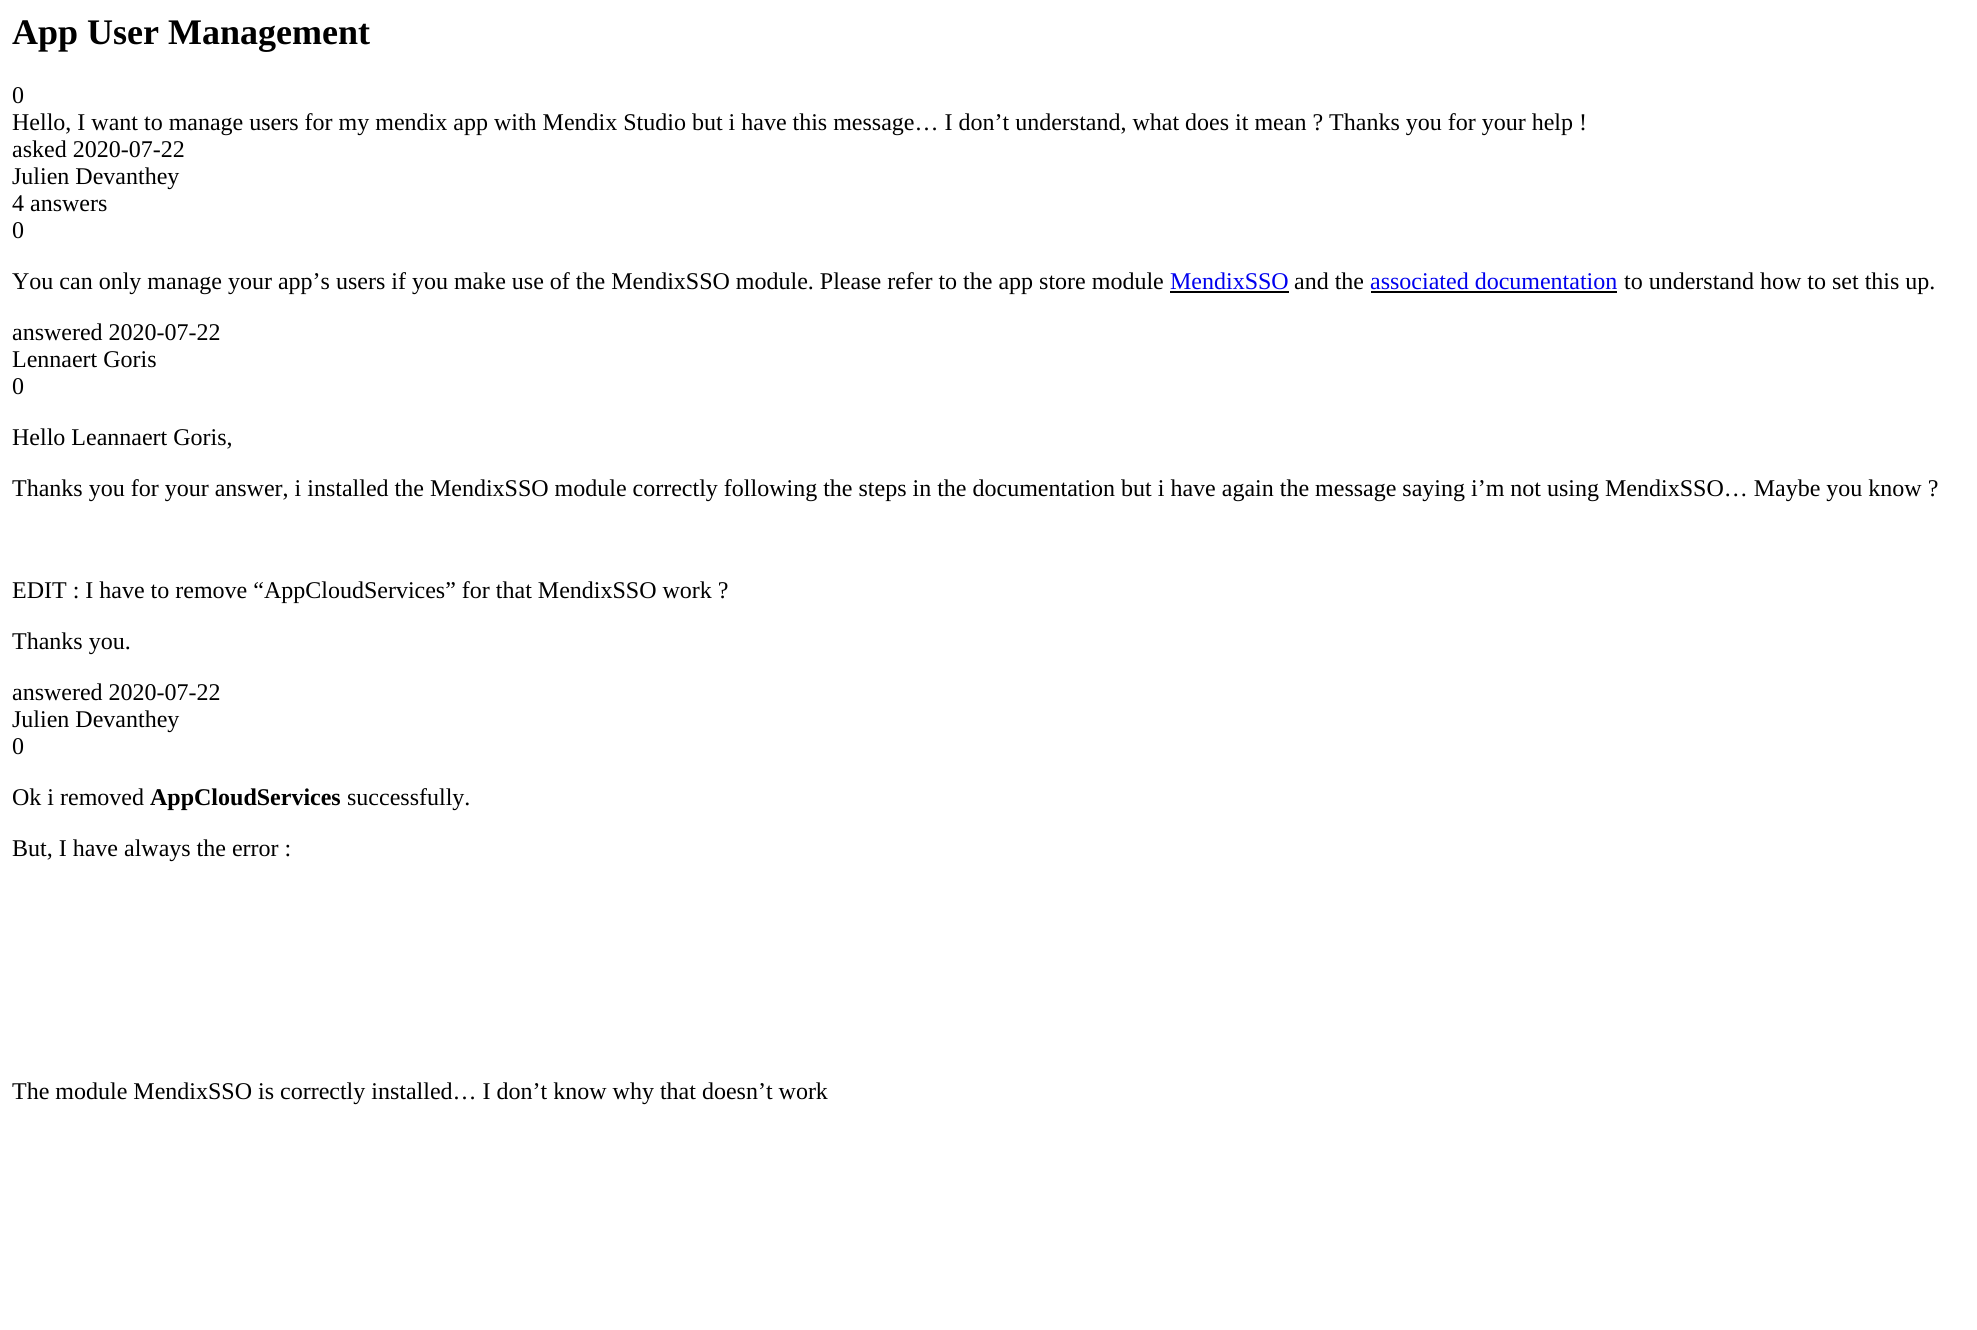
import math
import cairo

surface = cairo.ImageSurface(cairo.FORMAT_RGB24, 1977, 1330)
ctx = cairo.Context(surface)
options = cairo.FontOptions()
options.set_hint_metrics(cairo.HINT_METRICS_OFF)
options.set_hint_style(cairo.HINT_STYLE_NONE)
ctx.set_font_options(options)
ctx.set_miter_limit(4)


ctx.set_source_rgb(1, 1, 1)
ctx.paint()
ctx.select_font_face("Liberation Serif", cairo.FONT_SLANT_NORMAL, cairo.FONT_WEIGHT_BOLD)
ctx.set_font_size(36)
ctx.set_source_rgb(0, 0, 0)
ctx.move_to(12, 44)
ctx.show_text("App User Management")
ctx.select_font_face("Liberation Serif")
ctx.set_font_size(24)
ctx.move_to(12, 103)
ctx.show_text("0")
ctx.move_to(12, 130)
ctx.show_text("Hello, I want to manage users for my mendix app with Mendix Studio but i have this message… I don’t understand, what does it mean ? Thanks you for your help !")
ctx.move_to(12, 157)
ctx.show_text("asked 2020-07-22")
ctx.move_to(12, 184)
ctx.show_text("Julien Devanthey")
ctx.move_to(12, 211)
ctx.show_text("4 answers")
ctx.move_to(12, 238)
ctx.show_text("0")
ctx.move_to(12, 289)
ctx.show_text("You can only manage your app’s users if you make use of the MendixSSO module. Please refer to the app store module")
ctx.set_source_rgb(0, 0, 0.933)
ctx.move_to(1170, 289)
ctx.show_text("MendixSSO")
ctx.set_source_rgb(0, 0, 0)
ctx.rectangle(1170, 291, 119, 2)
ctx.fill()
ctx.move_to(1294, 289)
ctx.show_text("and the")
ctx.set_source_rgb(0, 0, 0.933)
ctx.move_to(1370, 289)
ctx.show_text("associated documentation")
ctx.set_source_rgb(0, 0, 0)
ctx.rectangle(1371, 291, 246, 2)
ctx.fill()
ctx.move_to(1624, 289)
ctx.show_text("to understand how to set this up.")
ctx.move_to(12, 340)
ctx.show_text("answered 2020-07-22")
ctx.move_to(12, 367)
ctx.show_text("Lennaert Goris")
ctx.move_to(12, 394)
ctx.show_text("0")
ctx.move_to(12, 445)
ctx.show_text("Hello Leannaert Goris,")
ctx.move_to(12, 496)
ctx.show_text("Thanks you for your answer, i installed the MendixSSO module correctly following the steps in the documentation but i have again the message saying i’m not using MendixSSO… Maybe you know ?")
ctx.move_to(12, 598)
ctx.show_text("EDIT : I have to remove “AppCloudServices” for that MendixSSO work ?")
ctx.move_to(12, 649)
ctx.show_text("Thanks you.")
ctx.move_to(12, 700)
ctx.show_text("answered 2020-07-22")
ctx.move_to(12, 727)
ctx.show_text("Julien Devanthey")
ctx.move_to(12, 754)
ctx.show_text("0")
ctx.move_to(12, 805)
ctx.show_text("Ok i removed")
ctx.select_font_face("Liberation Serif", cairo.FONT_SLANT_NORMAL, cairo.FONT_WEIGHT_BOLD)
ctx.move_to(150, 805)
ctx.show_text("AppCloudServices")
ctx.select_font_face("Liberation Serif")
ctx.move_to(347, 805)
ctx.show_text("successfully.")
ctx.move_to(12, 856)
ctx.show_text("But, I have always the error :")
ctx.move_to(12, 1099)
ctx.show_text("The module MendixSSO is correctly installed… I don’t know why that doesn’t work")
surface.write_to_png("page.png")
